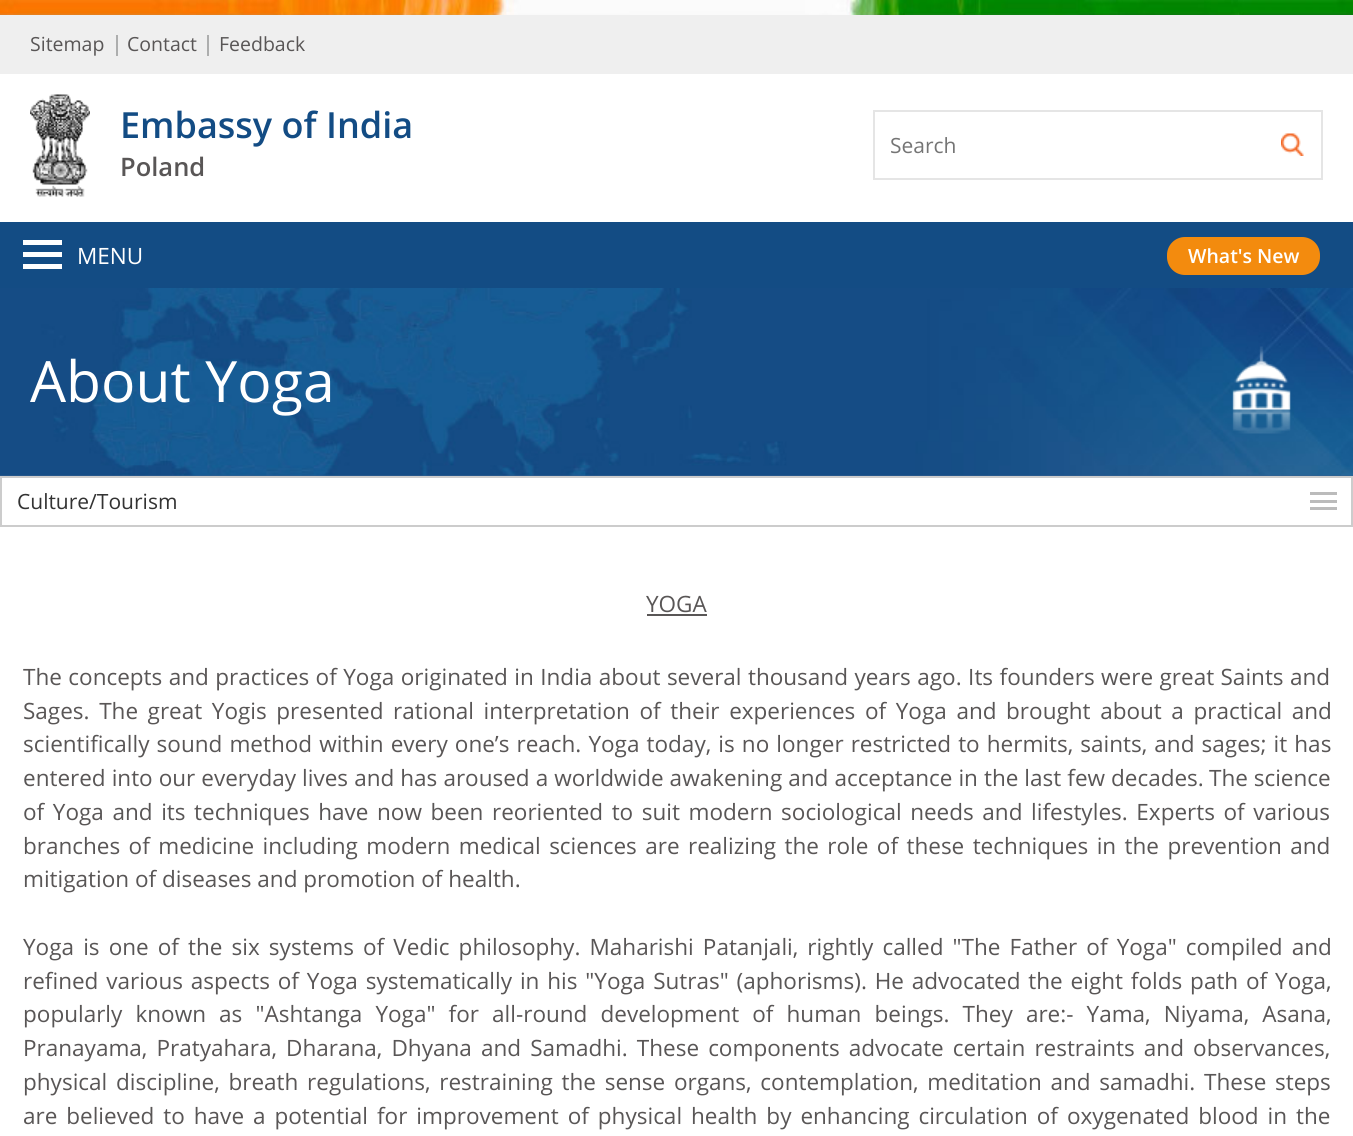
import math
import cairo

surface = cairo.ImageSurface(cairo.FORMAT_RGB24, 1353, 1136)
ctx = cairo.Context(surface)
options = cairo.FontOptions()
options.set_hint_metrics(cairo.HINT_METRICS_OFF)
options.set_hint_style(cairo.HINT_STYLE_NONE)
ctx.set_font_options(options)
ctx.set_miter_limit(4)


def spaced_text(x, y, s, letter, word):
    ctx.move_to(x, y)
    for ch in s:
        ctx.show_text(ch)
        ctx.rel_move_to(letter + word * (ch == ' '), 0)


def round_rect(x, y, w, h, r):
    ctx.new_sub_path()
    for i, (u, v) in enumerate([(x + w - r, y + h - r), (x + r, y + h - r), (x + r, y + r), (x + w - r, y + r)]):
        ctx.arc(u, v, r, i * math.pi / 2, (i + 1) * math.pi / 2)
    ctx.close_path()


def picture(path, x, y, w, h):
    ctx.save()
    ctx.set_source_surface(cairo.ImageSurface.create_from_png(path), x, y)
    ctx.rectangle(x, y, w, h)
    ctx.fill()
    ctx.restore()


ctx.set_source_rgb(1, 1, 1)
ctx.paint()
picture("img1.png", 0, 0, 1353, 15)
ctx.set_source_rgb(0.937, 0.937, 0.937)
ctx.rectangle(0, 15, 1353, 59)
ctx.fill()
ctx.select_font_face("Open Sans")
ctx.set_font_size(19.5)
ctx.set_source_rgb(0.349, 0.337, 0.337)
ctx.move_to(30, 51)
ctx.show_text("Sitemap")
ctx.set_source_rgb(0.678, 0.682, 0.682)
ctx.rectangle(116, 35, 2, 21)
ctx.fill()
ctx.set_source_rgb(0.349, 0.337, 0.337)
ctx.move_to(127, 51)
ctx.show_text("Contact")
ctx.set_source_rgb(0.678, 0.682, 0.682)
ctx.rectangle(207, 35, 2, 21)
ctx.fill()
ctx.set_source_rgb(0.349, 0.337, 0.337)
ctx.move_to(219, 51)
ctx.show_text("Feedback")
picture("img2.png", 30, 94, 60, 103)
ctx.select_font_face("Open Sans SemiBold")
ctx.set_font_size(36)
ctx.set_source_rgb(0.078, 0.298, 0.518)
ctx.move_to(120, 138)
ctx.show_text("Embassy of India")
ctx.set_font_size(25.5)
ctx.set_source_rgb(0.349, 0.337, 0.337)
ctx.move_to(120, 176)
ctx.show_text("Poland")
ctx.rectangle(874, 111, 448, 68)
ctx.set_source_rgb(0.898, 0.898, 0.898)
ctx.stroke()
ctx.select_font_face("Open Sans")
ctx.set_font_size(21)
ctx.set_source_rgb(0.459, 0.459, 0.459)
ctx.move_to(890, 153)
ctx.show_text("Search")
picture("img3.png", 1281, 133, 23, 23)
ctx.set_source_rgb(0.078, 0.298, 0.518)
ctx.rectangle(0, 222, 1353, 66)
ctx.fill()
ctx.set_source_rgb(1, 1, 1)
ctx.rectangle(23, 252, 39, 5)
ctx.fill()
ctx.rectangle(23, 240, 39, 5)
ctx.fill()
ctx.rectangle(23, 264, 39, 5)
ctx.fill()
ctx.set_font_size(22.5)
ctx.move_to(77, 264)
ctx.show_text("MENU")
ctx.set_source_rgb(0.953, 0.545, 0.055)
round_rect(1167, 237, 153, 38, 18)
ctx.fill()
ctx.select_font_face("Open Sans SemiBold")
ctx.set_font_size(19.5)
ctx.set_source_rgb(1, 1, 1)
ctx.move_to(1188, 263)
ctx.show_text("What's New")
ctx.set_source_rgb(0.212, 0.38, 0.557)
ctx.rectangle(0, 475, 1353, 1)
ctx.fill()
picture("img4.png", 0, 288, 1353, 188)
ctx.select_font_face("Open Sans")
ctx.set_font_size(57)
ctx.set_source_rgb(1, 1, 1)
ctx.move_to(30, 402)
ctx.show_text("About Yoga")
picture("img5.png", 1232, 346, 59, 88)
ctx.rectangle(1, 477, 1351, 49)
ctx.set_source_rgb(0.8, 0.8, 0.8)
ctx.stroke()
ctx.set_font_size(21)
ctx.set_source_rgb(0.2, 0.2, 0.2)
ctx.move_to(17, 509)
ctx.show_text("Culture/Tourism")
ctx.set_source_rgb(0.733, 0.733, 0.733)
ctx.rectangle(1310, 500, 27, 3)
ctx.fill()
ctx.rectangle(1310, 492, 27, 3)
ctx.fill()
ctx.rectangle(1310, 507, 27, 3)
ctx.fill()
ctx.set_font_size(22.5)
ctx.set_source_rgb(0.349, 0.337, 0.337)
ctx.move_to(646, 612)
ctx.show_text("YOGA")
ctx.rectangle(647, 614, 60, 2)
ctx.fill()
spaced_text(23, 685, "The concepts and practices of Yoga originated in India about several thousand years ago. Its founders were great Saints and", 0, 0.6)
spaced_text(23, 719, "Sages. The great Yogis presented rational interpretation of their experiences of Yoga and brought about a practical and", 0, 3.75)
spaced_text(23, 752, "scientifically sound method within every one’s reach. Yoga today, is no longer restricted to hermits, saints, and sages; it has", 0, 1.25)
spaced_text(23, 786, "entered into our everyday lives and has aroused a worldwide awakening and acceptance in the last few decades.", 0, 0.2)
ctx.move_to(1209, 786)
ctx.show_text("The science")
spaced_text(23, 820, "of Yoga and its techniques have now been reoriented to suit modern sociological needs and lifestyles. Experts of various", 0, 2.75)
spaced_text(23, 854, "branches of medicine including modern medical sciences are realizing the role of these techniques in the prevention and", 0, 2.6)
ctx.move_to(23, 887)
ctx.show_text("mitigation of diseases and promotion of health.")
spaced_text(23, 955, "Yoga is one of the six systems of Vedic philosophy. Maharishi Patanjali, rightly called \"The Father of Yoga\" compiled and", 0, 3.25)
spaced_text(23, 989, "refined various aspects of Yoga systematically in his \"Yoga Sutras\" (aphorisms). He advocated the eight folds path of Yoga,", 0, 2)
spaced_text(23, 1022, "popularly known as \"Ashtanga Yoga\" for all-round development of human beings. They are:- Yama, Niyama, Asana,", 0, 7.25)
spaced_text(23, 1056, "Pranayama, Pratyahara, Dharana, Dhyana and Samadhi. These components advocate certain restraints and observances,", 0, 3.25)
spaced_text(23, 1090, "physical discipline, breath regulations, restraining the sense organs, contemplation, meditation and samadhi. These steps", 0, 2.9)
spaced_text(23, 1124, "are believed to have a potential for improvement of physical health by enhancing circulation of oxygenated blood in the", 0, 3.1)
surface.write_to_png("page.png")
